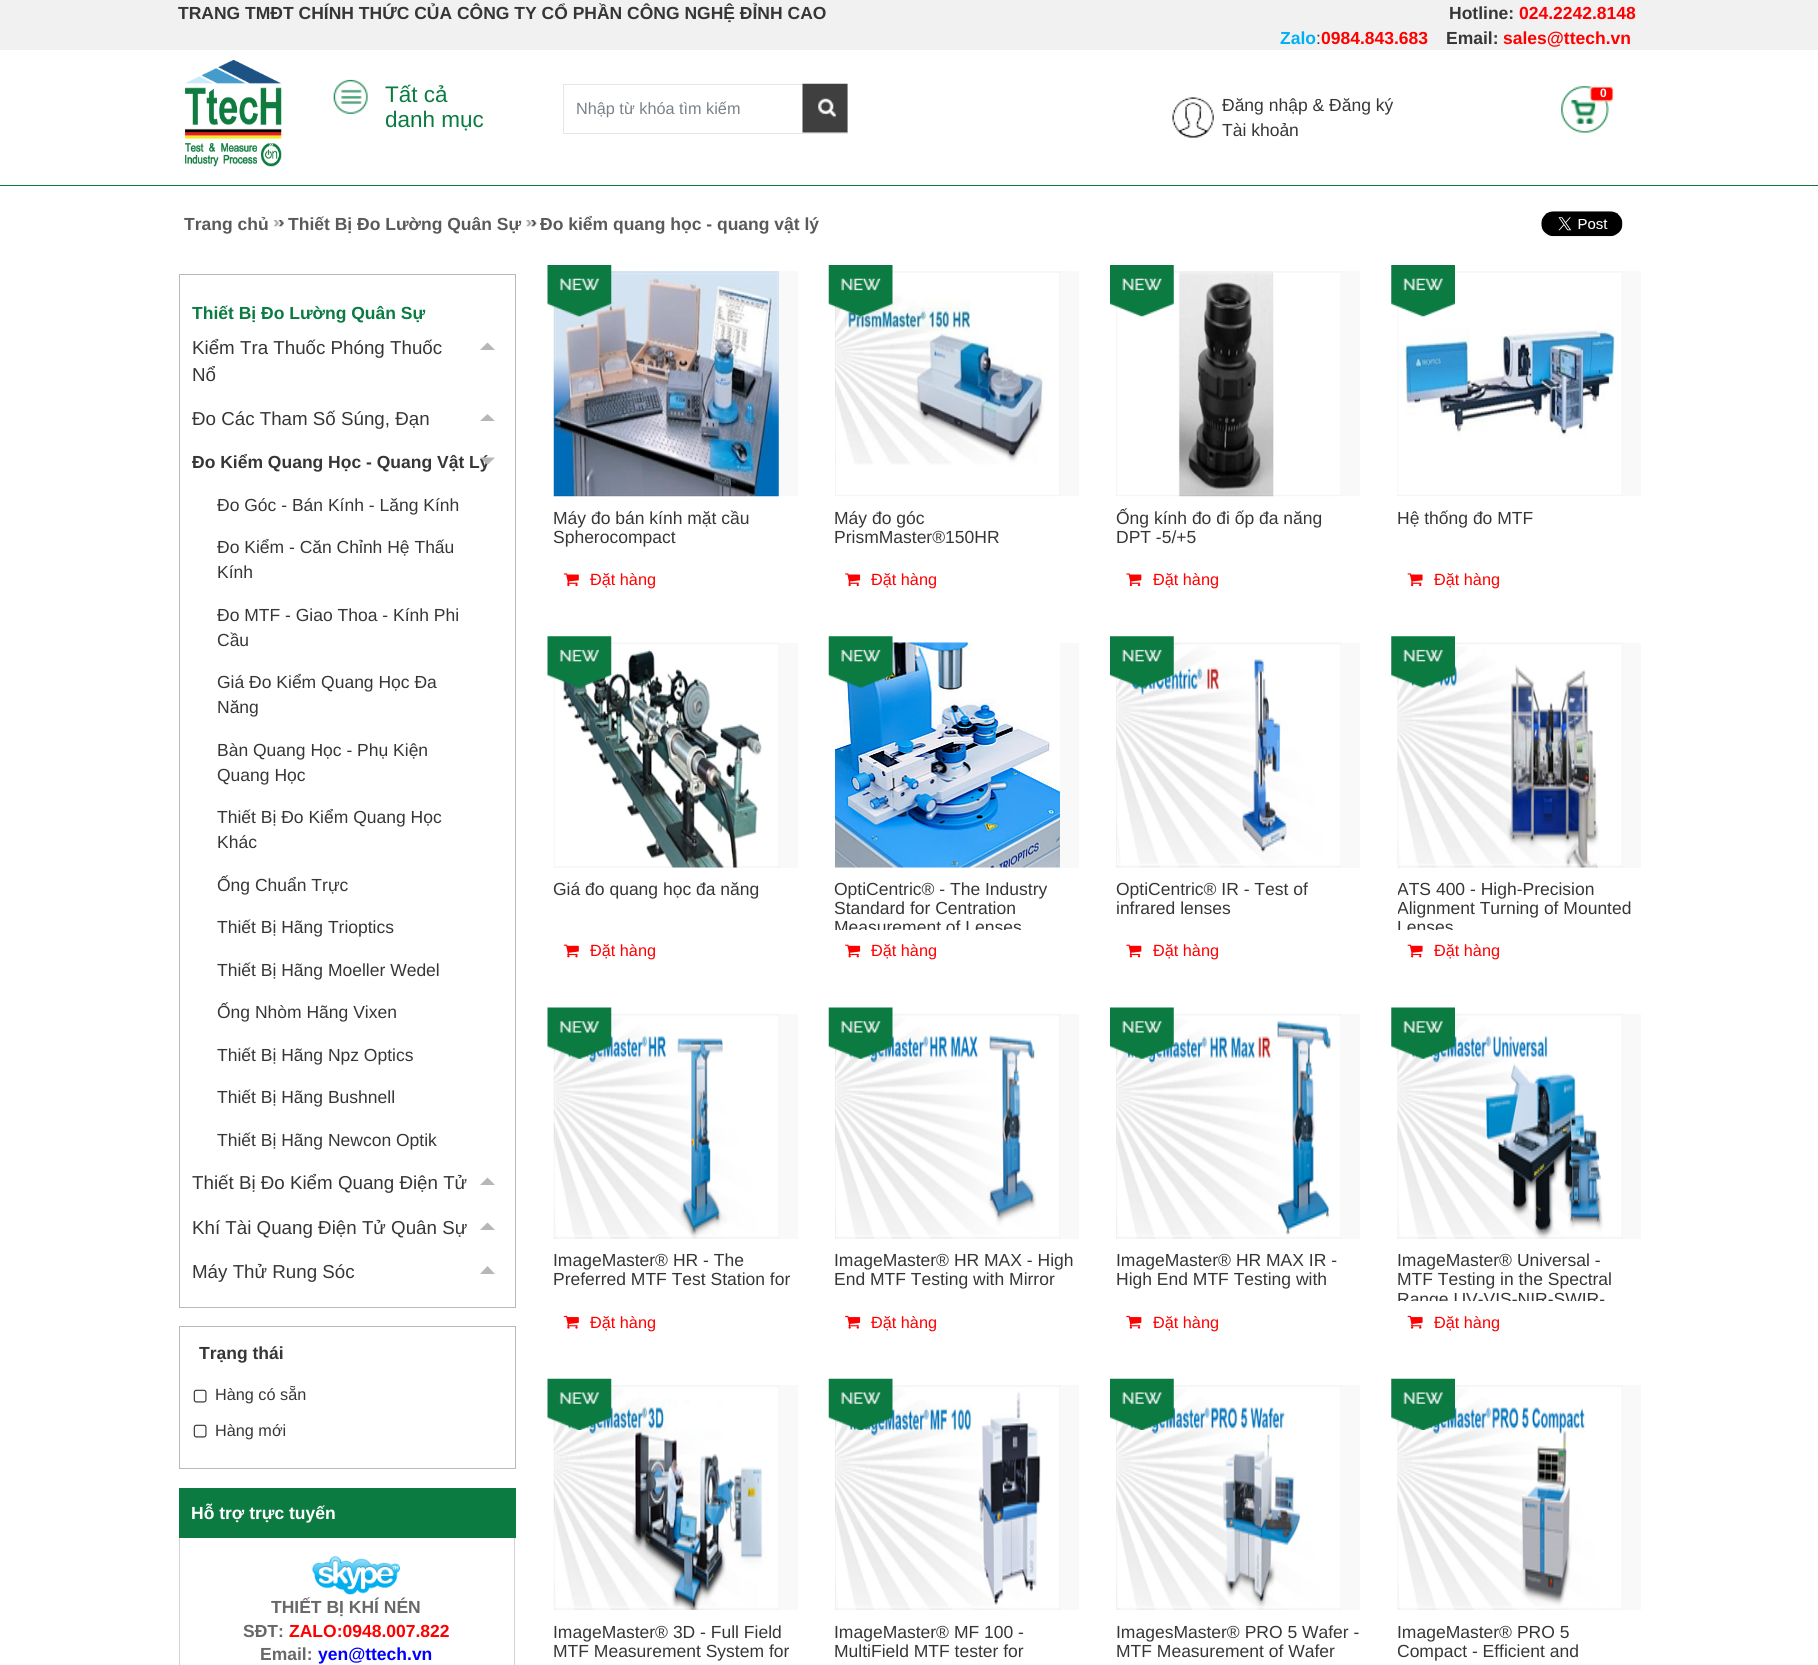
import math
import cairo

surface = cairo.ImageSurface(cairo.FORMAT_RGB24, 1818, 1665)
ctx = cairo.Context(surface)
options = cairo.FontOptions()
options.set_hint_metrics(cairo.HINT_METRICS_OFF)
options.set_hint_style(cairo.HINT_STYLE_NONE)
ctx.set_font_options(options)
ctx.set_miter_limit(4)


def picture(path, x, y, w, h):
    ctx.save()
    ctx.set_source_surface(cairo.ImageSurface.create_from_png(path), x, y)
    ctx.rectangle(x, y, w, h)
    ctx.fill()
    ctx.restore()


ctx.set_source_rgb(1, 1, 1)
ctx.paint()
ctx.set_source_rgb(0.945, 0.945, 0.945)
ctx.rectangle(0, 0, 1818, 50)
ctx.fill()
ctx.select_font_face("Liberation Sans", cairo.FONT_SLANT_NORMAL, cairo.FONT_WEIGHT_BOLD)
ctx.set_font_size(17.5)
ctx.set_source_rgb(0.212, 0.212, 0.212)
ctx.move_to(178, 19)
ctx.show_text("TRANG TMĐT CHÍNH THỨC CỦA CÔNG TY CỔ PHẦN CÔNG NGHỆ ĐỈNH CAO")
ctx.move_to(1449, 19)
ctx.show_text("Hotline:")
ctx.set_source_rgb(1, 0, 0)
ctx.move_to(1519, 19)
ctx.show_text("024.2242.8148")
ctx.set_source_rgb(0, 0.69, 0.941)
ctx.move_to(1280, 44)
ctx.show_text("Zalo")
ctx.select_font_face("Liberation Sans")
ctx.set_source_rgb(0.212, 0.212, 0.212)
ctx.move_to(1316, 44)
ctx.show_text(":")
ctx.select_font_face("Liberation Sans", cairo.FONT_SLANT_NORMAL, cairo.FONT_WEIGHT_BOLD)
ctx.set_source_rgb(1, 0, 0)
ctx.move_to(1321, 44)
ctx.show_text("0984.843.683")
ctx.set_source_rgb(0.212, 0.212, 0.212)
ctx.move_to(1446, 44)
ctx.show_text("Email:")
ctx.set_source_rgb(1, 0, 0)
ctx.move_to(1503, 44)
ctx.show_text("sales@ttech.vn")
ctx.set_source_rgb(0.043, 0.482, 0.259)
ctx.rectangle(0, 185, 1818, 1)
ctx.fill()
picture("img1.png", 185, 60, 97, 107)
picture("img2.png", 333, 79, 35, 35)
ctx.select_font_face("Liberation Sans")
ctx.set_font_size(22.5)
ctx.move_to(385, 102)
ctx.show_text("Tất cả")
ctx.move_to(385, 127)
ctx.show_text("danh mục")
picture("img3.png", 1561, 86, 53, 47)
ctx.select_font_face("Liberation Sans", cairo.FONT_SLANT_NORMAL, cairo.FONT_WEIGHT_BOLD)
ctx.set_font_size(12)
ctx.set_source_rgb(1, 1, 1)
ctx.move_to(1600, 97)
ctx.show_text("0")
ctx.rectangle(563.5, 84.5, 284, 49)
ctx.set_source_rgb(0.902, 0.902, 0.902)
ctx.set_line_width(1)
ctx.stroke()
ctx.select_font_face("Liberation Sans")
ctx.set_font_size(16.25)
ctx.set_source_rgb(0.478, 0.506, 0.533)
ctx.move_to(576, 114)
ctx.show_text("Nhập từ khóa tìm kiếm")
picture("img4.png", 802, 83, 46, 50)
picture("img5.png", 1172, 97, 42, 41)
ctx.set_font_size(17.5)
ctx.set_source_rgb(0.212, 0.212, 0.212)
ctx.move_to(1222, 111)
ctx.show_text("Đăng nhập & Đăng ký")
ctx.move_to(1222, 136)
ctx.show_text("Tài khoản")
ctx.select_font_face("Liberation Sans", cairo.FONT_SLANT_NORMAL, cairo.FONT_WEIGHT_BOLD)
ctx.set_source_rgb(0.353, 0.353, 0.353)
ctx.move_to(184, 230)
ctx.show_text("Trang chủ")
picture("img6.png", 273, 220, 11, 7)
ctx.move_to(288, 230)
ctx.show_text("Thiết Bị Đo Lường Quân Sự")
picture("img7.png", 526, 220, 11, 7)
ctx.move_to(540, 230)
ctx.show_text("Đo kiểm quang học - quang vật lý")
picture("img8.png", 1541, 211, 82, 26)
ctx.rectangle(179.5, 274.5, 336, 1033)
ctx.set_source_rgb(0.725, 0.725, 0.725)
ctx.stroke()
ctx.set_source_rgb(0.043, 0.482, 0.259)
ctx.move_to(192, 319)
ctx.show_text("Thiết Bị Đo Lường Quân Sự")
ctx.select_font_face("Liberation Sans")
ctx.set_font_size(18.75)
ctx.set_source_rgb(0.212, 0.212, 0.212)
ctx.move_to(192, 354)
ctx.show_text("Kiểm Tra Thuốc Phóng Thuốc")
ctx.move_to(192, 381)
ctx.show_text("Nổ")
ctx.set_source_rgb(0.718, 0.718, 0.718)
ctx.new_path()
ctx.move_to(495, 350)
ctx.line_to(480, 350)
ctx.line_to(487.5, 342.5)
ctx.close_path()
ctx.fill()
ctx.set_source_rgb(0.212, 0.212, 0.212)
ctx.move_to(192, 425)
ctx.show_text("Đo Các Tham Số Súng, Đạn")
ctx.set_source_rgb(0.718, 0.718, 0.718)
ctx.new_path()
ctx.move_to(495, 421)
ctx.line_to(480, 421)
ctx.line_to(487.5, 414)
ctx.close_path()
ctx.fill()
ctx.select_font_face("Liberation Sans", cairo.FONT_SLANT_NORMAL, cairo.FONT_WEIGHT_BOLD)
ctx.set_font_size(17.5)
ctx.set_source_rgb(0.212, 0.212, 0.212)
ctx.move_to(192, 468)
ctx.show_text("Đo Kiểm Quang Học - Quang Vật Lý")
ctx.set_source_rgb(0.718, 0.718, 0.718)
ctx.new_path()
ctx.move_to(480, 457.5)
ctx.line_to(495, 457.5)
ctx.line_to(487.5, 465)
ctx.close_path()
ctx.fill()
ctx.select_font_face("Liberation Sans")
ctx.set_source_rgb(0.212, 0.212, 0.212)
ctx.move_to(217, 511)
ctx.show_text("Đo Góc - Bán Kính - Lăng Kính")
ctx.move_to(217, 553)
ctx.show_text("Đo Kiểm - Căn Chỉnh Hệ Thấu")
ctx.move_to(217, 578)
ctx.show_text("Kính")
ctx.move_to(217, 621)
ctx.show_text("Đo MTF - Giao Thoa - Kính Phi")
ctx.move_to(217, 646)
ctx.show_text("Cầu")
ctx.move_to(217, 688)
ctx.show_text("Giá Đo Kiểm Quang Học Đa")
ctx.move_to(217, 713)
ctx.show_text("Năng")
ctx.move_to(217, 756)
ctx.show_text("Bàn Quang Học - Phụ Kiện")
ctx.move_to(217, 781)
ctx.show_text("Quang Học")
ctx.move_to(217, 823)
ctx.show_text("Thiết Bị Đo Kiểm Quang Học")
ctx.move_to(217, 848)
ctx.show_text("Khác")
ctx.move_to(217, 891)
ctx.show_text("Ống Chuẩn Trực")
ctx.move_to(217, 933)
ctx.show_text("Thiết Bị Hãng Trioptics")
ctx.move_to(217, 976)
ctx.show_text("Thiết Bị Hãng Moeller Wedel")
ctx.move_to(217, 1018)
ctx.show_text("Ống Nhòm Hãng Vixen")
ctx.move_to(217, 1061)
ctx.show_text("Thiết Bị Hãng Npz Optics")
ctx.move_to(217, 1103)
ctx.show_text("Thiết Bị Hãng Bushnell")
ctx.move_to(217, 1146)
ctx.show_text("Thiết Bị Hãng Newcon Optik")
ctx.set_font_size(18.75)
ctx.move_to(192, 1189)
ctx.show_text("Thiết Bị Đo Kiểm Quang Điện Tử")
ctx.set_source_rgb(0.718, 0.718, 0.718)
ctx.new_path()
ctx.move_to(495, 1185)
ctx.line_to(480, 1185)
ctx.line_to(487.5, 1177.5)
ctx.close_path()
ctx.fill()
ctx.set_source_rgb(0.212, 0.212, 0.212)
ctx.move_to(192, 1234)
ctx.show_text("Khí Tài Quang Điện Tử Quân Sự")
ctx.set_source_rgb(0.718, 0.718, 0.718)
ctx.new_path()
ctx.move_to(495, 1230)
ctx.line_to(480, 1230)
ctx.line_to(487.5, 1222.5)
ctx.close_path()
ctx.fill()
ctx.set_source_rgb(0.212, 0.212, 0.212)
ctx.move_to(192, 1278)
ctx.show_text("Máy Thử Rung Sóc")
ctx.set_source_rgb(0.718, 0.718, 0.718)
ctx.new_path()
ctx.move_to(495, 1274)
ctx.line_to(480, 1274)
ctx.line_to(487.5, 1266)
ctx.close_path()
ctx.fill()
ctx.rectangle(179.5, 1326.5, 336, 142)
ctx.set_source_rgb(0.725, 0.725, 0.725)
ctx.stroke()
ctx.select_font_face("Liberation Sans", cairo.FONT_SLANT_NORMAL, cairo.FONT_WEIGHT_BOLD)
ctx.set_font_size(17.5)
ctx.set_source_rgb(0.212, 0.212, 0.212)
ctx.move_to(199, 1359)
ctx.show_text("Trạng thái")
picture("img9.png", 193, 1389, 14, 14)
ctx.select_font_face("Liberation Sans")
ctx.set_font_size(16.25)
ctx.move_to(215, 1400)
ctx.show_text("Hàng có sẵn")
picture("img9.png", 193, 1424, 14, 14)
ctx.move_to(215, 1436)
ctx.show_text("Hàng mới")
ctx.set_source_rgb(0.043, 0.482, 0.259)
ctx.rectangle(179, 1488, 337, 50)
ctx.fill()
ctx.select_font_face("Liberation Sans", cairo.FONT_SLANT_NORMAL, cairo.FONT_WEIGHT_BOLD)
ctx.set_font_size(17.5)
ctx.set_source_rgb(1, 1, 1)
ctx.move_to(191, 1519)
ctx.show_text("Hỗ trợ trực tuyến")
ctx.set_source_rgb(0.827, 0.827, 0.827)
ctx.set_fill_rule(cairo.FILL_RULE_EVEN_ODD)
ctx.new_path()
ctx.move_to(179, 1538)
ctx.line_to(515, 1538)
ctx.line_to(515, 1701)
ctx.curve_to(515, 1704, 513, 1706, 510, 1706)
ctx.line_to(184, 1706)
ctx.curve_to(181, 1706, 179, 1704, 179, 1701)
ctx.close_path()
ctx.move_to(180, 1538)
ctx.line_to(514, 1538)
ctx.line_to(514, 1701)
ctx.curve_to(514, 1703, 512, 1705, 510, 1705)
ctx.line_to(184, 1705)
ctx.curve_to(182, 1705, 180, 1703, 180, 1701)
ctx.close_path()
ctx.fill()
picture("img10.png", 312, 1556, 88, 39)
ctx.set_source_rgb(0.408, 0.408, 0.408)
ctx.move_to(271, 1613)
ctx.show_text("THIẾT BỊ KHÍ NÉN")
ctx.move_to(243, 1637)
ctx.show_text("SĐT:")
ctx.set_source_rgb(1, 0, 0)
ctx.move_to(289, 1637)
ctx.show_text("ZALO:0948.007.822")
ctx.set_source_rgb(0.408, 0.408, 0.408)
ctx.move_to(260, 1660)
ctx.show_text("Email:")
ctx.set_source_rgb(0, 0, 1)
ctx.move_to(318, 1660)
ctx.show_text("yen@ttech.vn")
ctx.set_source_rgb(0.973, 0.973, 0.973)
ctx.rectangle(611, 271, 187, 225)
ctx.fill()
picture("img12.png", 553, 271, 226, 226)
picture("img11.png", 547, 265, 65, 52)
ctx.select_font_face("Liberation Sans")
ctx.set_source_rgb(0.212, 0.212, 0.212)
ctx.move_to(553, 524)
ctx.show_text("Máy đo bán kính mặt cầu")
ctx.move_to(553, 543)
ctx.show_text("Spherocompact")
picture("img13.png", 563, 573, 16, 14)
ctx.set_font_size(16.25)
ctx.set_source_rgb(1, 0, 0)
ctx.move_to(590, 585)
ctx.show_text("Đặt hàng")
ctx.set_source_rgb(0.973, 0.973, 0.973)
ctx.rectangle(892, 271, 187, 225)
ctx.fill()
picture("img15.png", 835, 271, 225, 226)
picture("img14.png", 828, 265, 65, 52)
ctx.set_font_size(17.5)
ctx.set_source_rgb(0.212, 0.212, 0.212)
ctx.move_to(834, 524)
ctx.show_text("Máy đo góc")
ctx.move_to(834, 543)
ctx.show_text("PrismMaster®150HR")
picture("img16.png", 845, 573, 16, 14)
ctx.set_font_size(16.25)
ctx.set_source_rgb(1, 0, 0)
ctx.move_to(871, 585)
ctx.show_text("Đặt hàng")
ctx.set_source_rgb(0.973, 0.973, 0.973)
ctx.rectangle(1116, 271, 244, 225)
ctx.fill()
picture("img18.png", 1116, 271, 225, 226)
picture("img17.png", 1110, 265, 64, 52)
ctx.set_font_size(17.5)
ctx.set_source_rgb(0.212, 0.212, 0.212)
ctx.move_to(1116, 524)
ctx.show_text("Ống kính đo đi ốp đa năng")
ctx.move_to(1116, 543)
ctx.show_text("DPT -5/+5")
picture("img19.png", 1126, 573, 16, 14)
ctx.set_font_size(16.25)
ctx.set_source_rgb(1, 0, 0)
ctx.move_to(1153, 585)
ctx.show_text("Đặt hàng")
ctx.set_source_rgb(0.973, 0.973, 0.973)
ctx.rectangle(1455, 271, 186, 225)
ctx.fill()
picture("img21.png", 1397, 271, 226, 225)
picture("img20.png", 1391, 265, 64, 52)
ctx.set_font_size(17.5)
ctx.set_source_rgb(0.212, 0.212, 0.212)
ctx.move_to(1397, 524)
ctx.show_text("Hệ thống đo MTF")
picture("img22.png", 1407, 573, 16, 14)
ctx.set_font_size(16.25)
ctx.set_source_rgb(1, 0, 0)
ctx.move_to(1434, 585)
ctx.show_text("Đặt hàng")
ctx.set_source_rgb(0.973, 0.973, 0.973)
ctx.rectangle(554, 643, 244, 225)
ctx.fill()
picture("img24.png", 553, 642, 226, 226)
picture("img23.png", 547, 636, 65, 52)
ctx.set_font_size(17.5)
ctx.set_source_rgb(0.212, 0.212, 0.212)
ctx.move_to(553, 895)
ctx.show_text("Giá đo quang học đa năng")
picture("img25.png", 563, 944, 16, 14)
ctx.set_font_size(16.25)
ctx.set_source_rgb(1, 0, 0)
ctx.move_to(590, 956)
ctx.show_text("Đặt hàng")
ctx.set_source_rgb(0.973, 0.973, 0.973)
ctx.rectangle(835, 643, 244, 225)
ctx.fill()
picture("img27.png", 835, 642, 225, 226)
picture("img26.png", 828, 636, 65, 52)
ctx.set_font_size(17.5)
ctx.set_source_rgb(0.212, 0.212, 0.212)
ctx.move_to(834, 895)
ctx.show_text("OptiCentric® - The Industry")
ctx.move_to(834, 914)
ctx.show_text("Standard for Centration")
ctx.save()
ctx.set_fill_rule(cairo.FILL_RULE_WINDING)
ctx.rectangle(835, 868, 244, 62)
ctx.clip()
ctx.move_to(834, 933)
ctx.show_text("Measurement of Lenses")
ctx.restore()
picture("img28.png", 845, 944, 16, 14)
ctx.set_font_size(16.25)
ctx.set_source_rgb(1, 0, 0)
ctx.move_to(871, 956)
ctx.show_text("Đặt hàng")
ctx.set_source_rgb(0.973, 0.973, 0.973)
ctx.rectangle(1116, 643, 244, 225)
ctx.fill()
picture("img30.png", 1116, 642, 225, 226)
picture("img29.png", 1110, 636, 64, 52)
ctx.set_font_size(17.5)
ctx.set_source_rgb(0.212, 0.212, 0.212)
ctx.move_to(1116, 895)
ctx.show_text("OptiCentric® IR - Test of")
ctx.move_to(1116, 914)
ctx.show_text("infrared lenses")
picture("img31.png", 1126, 944, 16, 14)
ctx.set_font_size(16.25)
ctx.set_source_rgb(1, 0, 0)
ctx.move_to(1153, 956)
ctx.show_text("Đặt hàng")
ctx.set_source_rgb(0.973, 0.973, 0.973)
ctx.rectangle(1398, 643, 243, 225)
ctx.fill()
picture("img33.png", 1397, 642, 226, 226)
picture("img32.png", 1391, 636, 64, 52)
ctx.save()
ctx.set_fill_rule(cairo.FILL_RULE_WINDING)
ctx.rectangle(1398, 868, 243, 62)
ctx.clip()
ctx.set_font_size(17.5)
ctx.set_source_rgb(0.212, 0.212, 0.212)
ctx.move_to(1397, 895)
ctx.show_text("ATS 400 - High-Precision")
ctx.move_to(1397, 914)
ctx.show_text("Alignment Turning of Mounted")
ctx.move_to(1397, 933)
ctx.show_text("Lenses")
ctx.restore()
picture("img34.png", 1407, 944, 16, 14)
ctx.set_source_rgb(1, 0, 0)
ctx.move_to(1434, 956)
ctx.show_text("Đặt hàng")
ctx.set_source_rgb(0.973, 0.973, 0.973)
ctx.rectangle(554, 1014, 244, 225)
ctx.fill()
picture("img36.png", 553, 1013, 226, 226)
picture("img35.png", 547, 1007, 65, 52)
ctx.set_font_size(17.5)
ctx.set_source_rgb(0.212, 0.212, 0.212)
ctx.move_to(553, 1266)
ctx.show_text("ImageMaster® HR - The")
ctx.move_to(553, 1285)
ctx.show_text("Preferred MTF Test Station for")
picture("img37.png", 563, 1315, 16, 14)
ctx.set_font_size(16.25)
ctx.set_source_rgb(1, 0, 0)
ctx.move_to(590, 1328)
ctx.show_text("Đặt hàng")
ctx.set_source_rgb(0.973, 0.973, 0.973)
ctx.rectangle(835, 1014, 244, 225)
ctx.fill()
picture("img39.png", 835, 1013, 225, 226)
picture("img38.png", 828, 1007, 65, 52)
ctx.set_font_size(17.5)
ctx.set_source_rgb(0.212, 0.212, 0.212)
ctx.move_to(834, 1266)
ctx.show_text("ImageMaster® HR MAX - High")
ctx.move_to(834, 1285)
ctx.show_text("End MTF Testing with Mirror")
picture("img40.png", 845, 1315, 16, 14)
ctx.set_font_size(16.25)
ctx.set_source_rgb(1, 0, 0)
ctx.move_to(871, 1328)
ctx.show_text("Đặt hàng")
ctx.set_source_rgb(0.973, 0.973, 0.973)
ctx.rectangle(1116, 1014, 244, 225)
ctx.fill()
picture("img42.png", 1116, 1013, 225, 226)
picture("img41.png", 1110, 1007, 64, 52)
ctx.set_font_size(17.5)
ctx.set_source_rgb(0.212, 0.212, 0.212)
ctx.move_to(1116, 1266)
ctx.show_text("ImageMaster® HR MAX IR -")
ctx.move_to(1116, 1285)
ctx.show_text("High End MTF Testing with")
picture("img43.png", 1126, 1315, 16, 14)
ctx.set_font_size(16.25)
ctx.set_source_rgb(1, 0, 0)
ctx.move_to(1153, 1328)
ctx.show_text("Đặt hàng")
ctx.set_source_rgb(0.973, 0.973, 0.973)
ctx.rectangle(1398, 1014, 243, 225)
ctx.fill()
picture("img45.png", 1397, 1013, 226, 226)
picture("img44.png", 1391, 1007, 64, 52)
ctx.set_font_size(17.5)
ctx.set_source_rgb(0.212, 0.212, 0.212)
ctx.move_to(1397, 1266)
ctx.show_text("ImageMaster® Universal -")
ctx.move_to(1397, 1285)
ctx.show_text("MTF Testing in the Spectral")
ctx.save()
ctx.set_fill_rule(cairo.FILL_RULE_WINDING)
ctx.rectangle(1398, 1239, 243, 62)
ctx.clip()
ctx.move_to(1397, 1305)
ctx.show_text("Range UV-VIS-NIR-SWIR-")
ctx.restore()
picture("img46.png", 1407, 1315, 16, 14)
ctx.set_font_size(16.25)
ctx.set_source_rgb(1, 0, 0)
ctx.move_to(1434, 1328)
ctx.show_text("Đặt hàng")
ctx.set_source_rgb(0.973, 0.973, 0.973)
ctx.rectangle(778, 1385, 20, 225)
ctx.fill()
picture("img48.png", 553, 1385, 226, 225)
picture("img47.png", 547, 1378, 65, 52)
ctx.set_font_size(17.5)
ctx.set_source_rgb(0.212, 0.212, 0.212)
ctx.move_to(553, 1638)
ctx.show_text("ImageMaster® 3D - Full Field")
ctx.move_to(553, 1657)
ctx.show_text("MTF Measurement System for")
picture("img50.png", 835, 1385, 225, 225)
picture("img49.png", 828, 1378, 65, 52)
ctx.set_source_rgb(0.973, 0.973, 0.973)
ctx.rectangle(1060, 1385, 19, 225)
ctx.fill()
ctx.set_source_rgb(0.212, 0.212, 0.212)
ctx.move_to(834, 1638)
ctx.show_text("ImageMaster® MF 100 -")
ctx.move_to(834, 1657)
ctx.show_text("MultiField MTF tester for")
ctx.set_source_rgb(0.973, 0.973, 0.973)
ctx.rectangle(1116, 1385, 244, 225)
ctx.fill()
picture("img52.png", 1116, 1385, 225, 225)
picture("img51.png", 1110, 1378, 64, 52)
ctx.set_source_rgb(0.212, 0.212, 0.212)
ctx.move_to(1116, 1638)
ctx.show_text("ImagesMaster® PRO 5 Wafer -")
ctx.move_to(1116, 1657)
ctx.show_text("MTF Measurement of Wafer")
ctx.set_source_rgb(0.973, 0.973, 0.973)
ctx.rectangle(1622, 1385, 19, 225)
ctx.fill()
picture("img54.png", 1397, 1385, 226, 225)
picture("img53.png", 1391, 1378, 64, 52)
ctx.set_source_rgb(0.212, 0.212, 0.212)
ctx.move_to(1397, 1638)
ctx.show_text("ImageMaster® PRO 5")
ctx.save()
ctx.set_fill_rule(cairo.FILL_RULE_WINDING)
ctx.rectangle(1398, 1610, 243, 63)
ctx.clip()
ctx.move_to(1397, 1657)
ctx.show_text("Compact - Efficient and")
ctx.restore()
surface.write_to_png("page.png")
